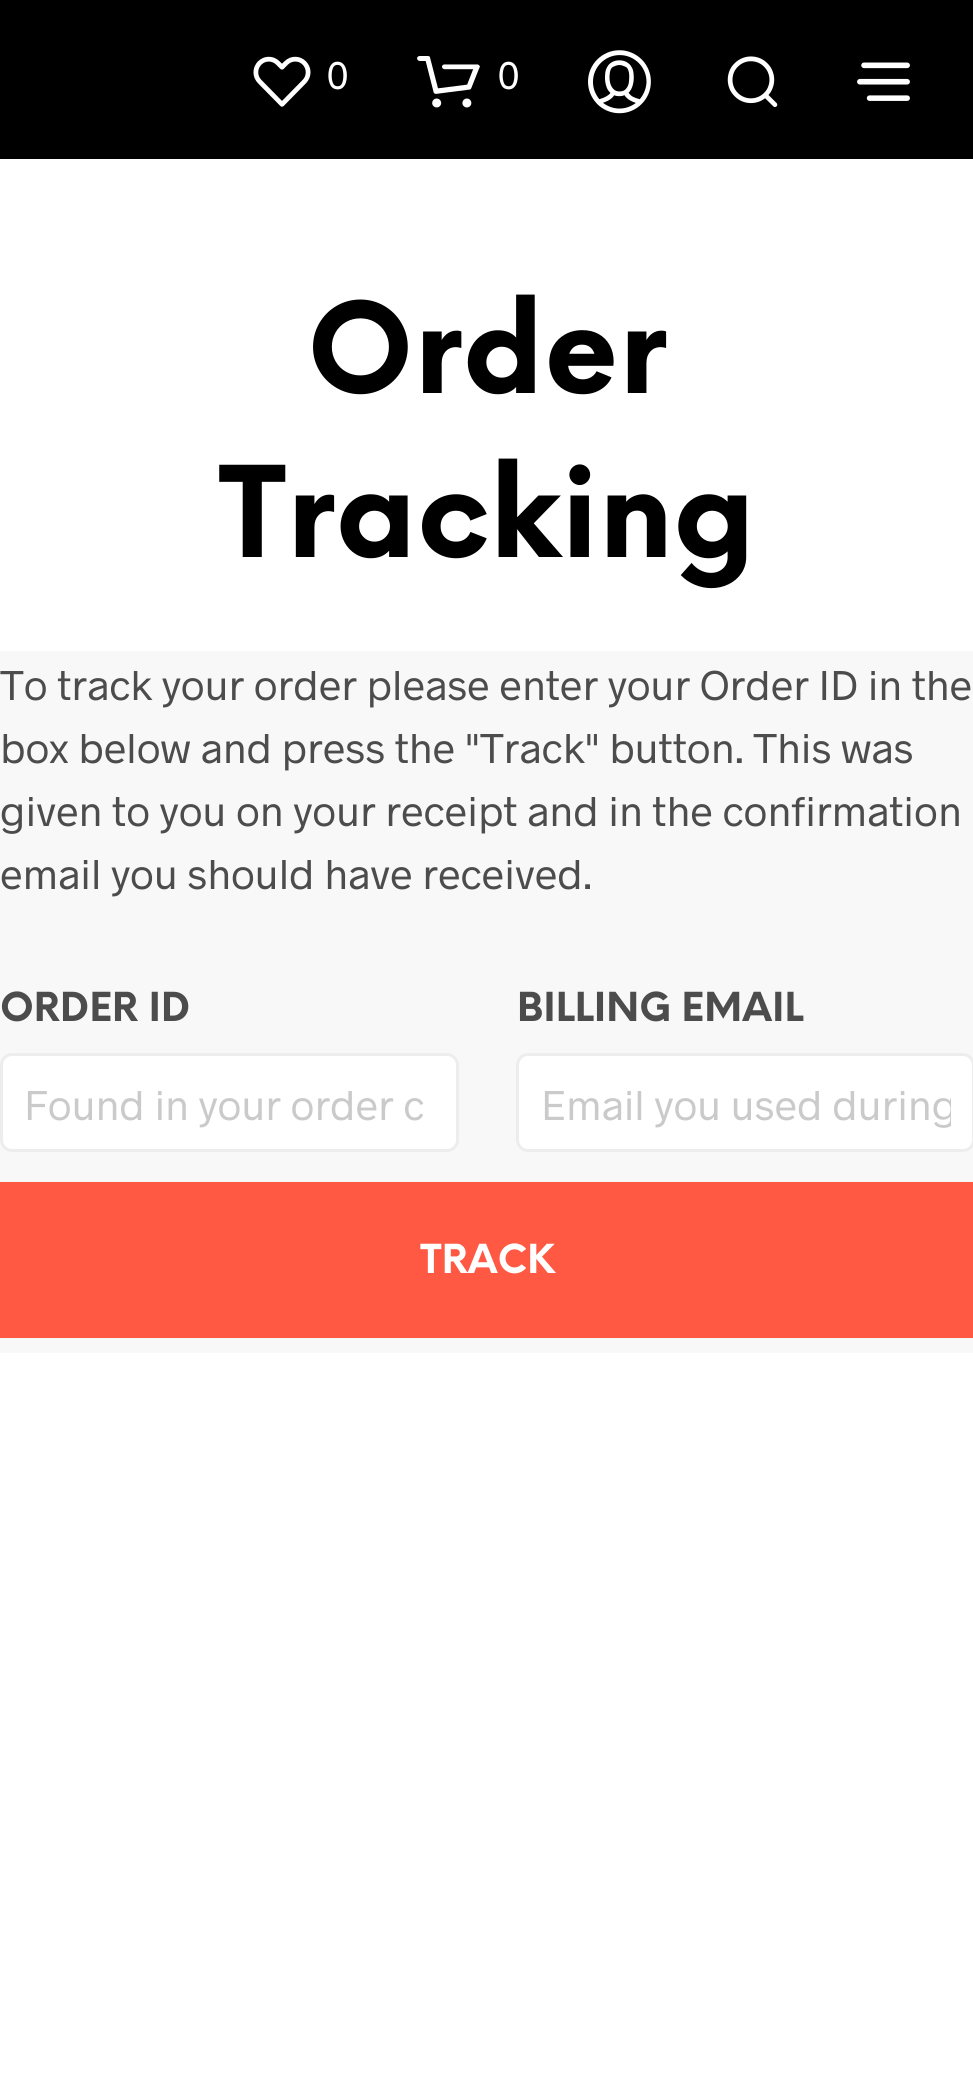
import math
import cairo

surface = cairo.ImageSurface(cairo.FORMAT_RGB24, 973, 2081)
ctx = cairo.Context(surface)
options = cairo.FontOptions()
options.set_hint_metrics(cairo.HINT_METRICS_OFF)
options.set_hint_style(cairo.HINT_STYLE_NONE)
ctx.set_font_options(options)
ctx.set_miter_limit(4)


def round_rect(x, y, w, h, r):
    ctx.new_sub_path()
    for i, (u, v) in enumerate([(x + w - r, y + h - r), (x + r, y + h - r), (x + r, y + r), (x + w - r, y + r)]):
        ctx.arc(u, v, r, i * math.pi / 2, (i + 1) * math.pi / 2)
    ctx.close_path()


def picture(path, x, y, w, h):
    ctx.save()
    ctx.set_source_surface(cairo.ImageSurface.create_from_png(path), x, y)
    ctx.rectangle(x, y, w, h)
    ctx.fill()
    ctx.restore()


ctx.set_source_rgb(1, 1, 1)
ctx.paint()
ctx.set_source_rgb(0, 0, 0)
ctx.rectangle(0, 0, 973, 159)
ctx.fill()
picture("img1.png", 253, 56, 58, 51)
ctx.select_font_face("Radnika")
ctx.set_font_size(39)
ctx.set_source_rgb(1, 1, 1)
ctx.move_to(327, 89)
ctx.show_text("0")
picture("img2.png", 417, 56, 63, 52)
ctx.move_to(498, 89)
ctx.show_text("0")
picture("img3.png", 588, 50, 63, 64)
picture("img4.png", 727, 56, 51, 51)
picture("img5.png", 857, 62, 53, 39)
ctx.select_font_face("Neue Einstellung", cairo.FONT_SLANT_NORMAL, cairo.FONT_WEIGHT_BOLD)
ctx.set_font_size(123)
ctx.set_source_rgb(0, 0, 0)
ctx.move_to(307, 393)
ctx.show_text("Order")
ctx.move_to(218, 557)
ctx.show_text("Tracking")
ctx.set_source_rgb(0.969, 0.969, 0.969)
ctx.rectangle(0, 651, 973, 702)
ctx.fill()
ctx.select_font_face("Radnika")
ctx.set_font_size(42)
ctx.set_source_rgb(0.298, 0.298, 0.298)
ctx.move_to(0, 700)
ctx.show_text("To track your order please enter your Order ID in the")
ctx.move_to(0, 763)
ctx.show_text("box below and press the \"Track\" button. This was")
ctx.move_to(0, 826)
ctx.show_text("given to you on your receipt and in the confirmation")
ctx.move_to(0, 889)
ctx.show_text("email you should have received.")
ctx.select_font_face("Neue Einstellung", cairo.FONT_SLANT_NORMAL, cairo.FONT_WEIGHT_BOLD)
ctx.set_font_size(39)
ctx.move_to(0, 1021)
ctx.show_text("ORDER ID")
ctx.set_source_rgb(1, 1, 1)
round_rect(0, 1053, 459, 99, 12)
ctx.fill()
round_rect(1.5, 1054.5, 456, 96, 10.5)
ctx.set_source_rgba(0.298, 0.298, 0.298, 0.1)
ctx.set_line_width(3)
ctx.stroke()
ctx.select_font_face("Radnika")
ctx.set_font_size(42)
ctx.set_source_rgb(0.792, 0.792, 0.792)
ctx.move_to(24, 1120)
ctx.show_text("Found in your order c")
ctx.select_font_face("Neue Einstellung", cairo.FONT_SLANT_NORMAL, cairo.FONT_WEIGHT_BOLD)
ctx.set_font_size(39)
ctx.set_source_rgb(0.298, 0.298, 0.298)
ctx.move_to(517, 1021)
ctx.show_text("BILLING EMAIL")
ctx.set_source_rgb(1, 1, 1)
round_rect(516, 1053, 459, 99, 12)
ctx.fill()
round_rect(517.5, 1054.5, 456, 96, 10.5)
ctx.set_source_rgba(0.298, 0.298, 0.298, 0.1)
ctx.stroke()
ctx.save()
ctx.rectangle(540, 1077, 411, 51)
ctx.clip()
ctx.select_font_face("Radnika")
ctx.set_font_size(42)
ctx.set_source_rgb(0.792, 0.792, 0.792)
ctx.move_to(541, 1120)
ctx.show_text("Email you used during")
ctx.restore()
ctx.set_source_rgb(1, 0.349, 0.263)
ctx.rectangle(0, 1182, 973, 156)
ctx.fill()
ctx.set_source_rgb(1, 1, 1)
ctx.move_to(420, 1273)
ctx.show_text("TRACK")
surface.write_to_png("page.png")
